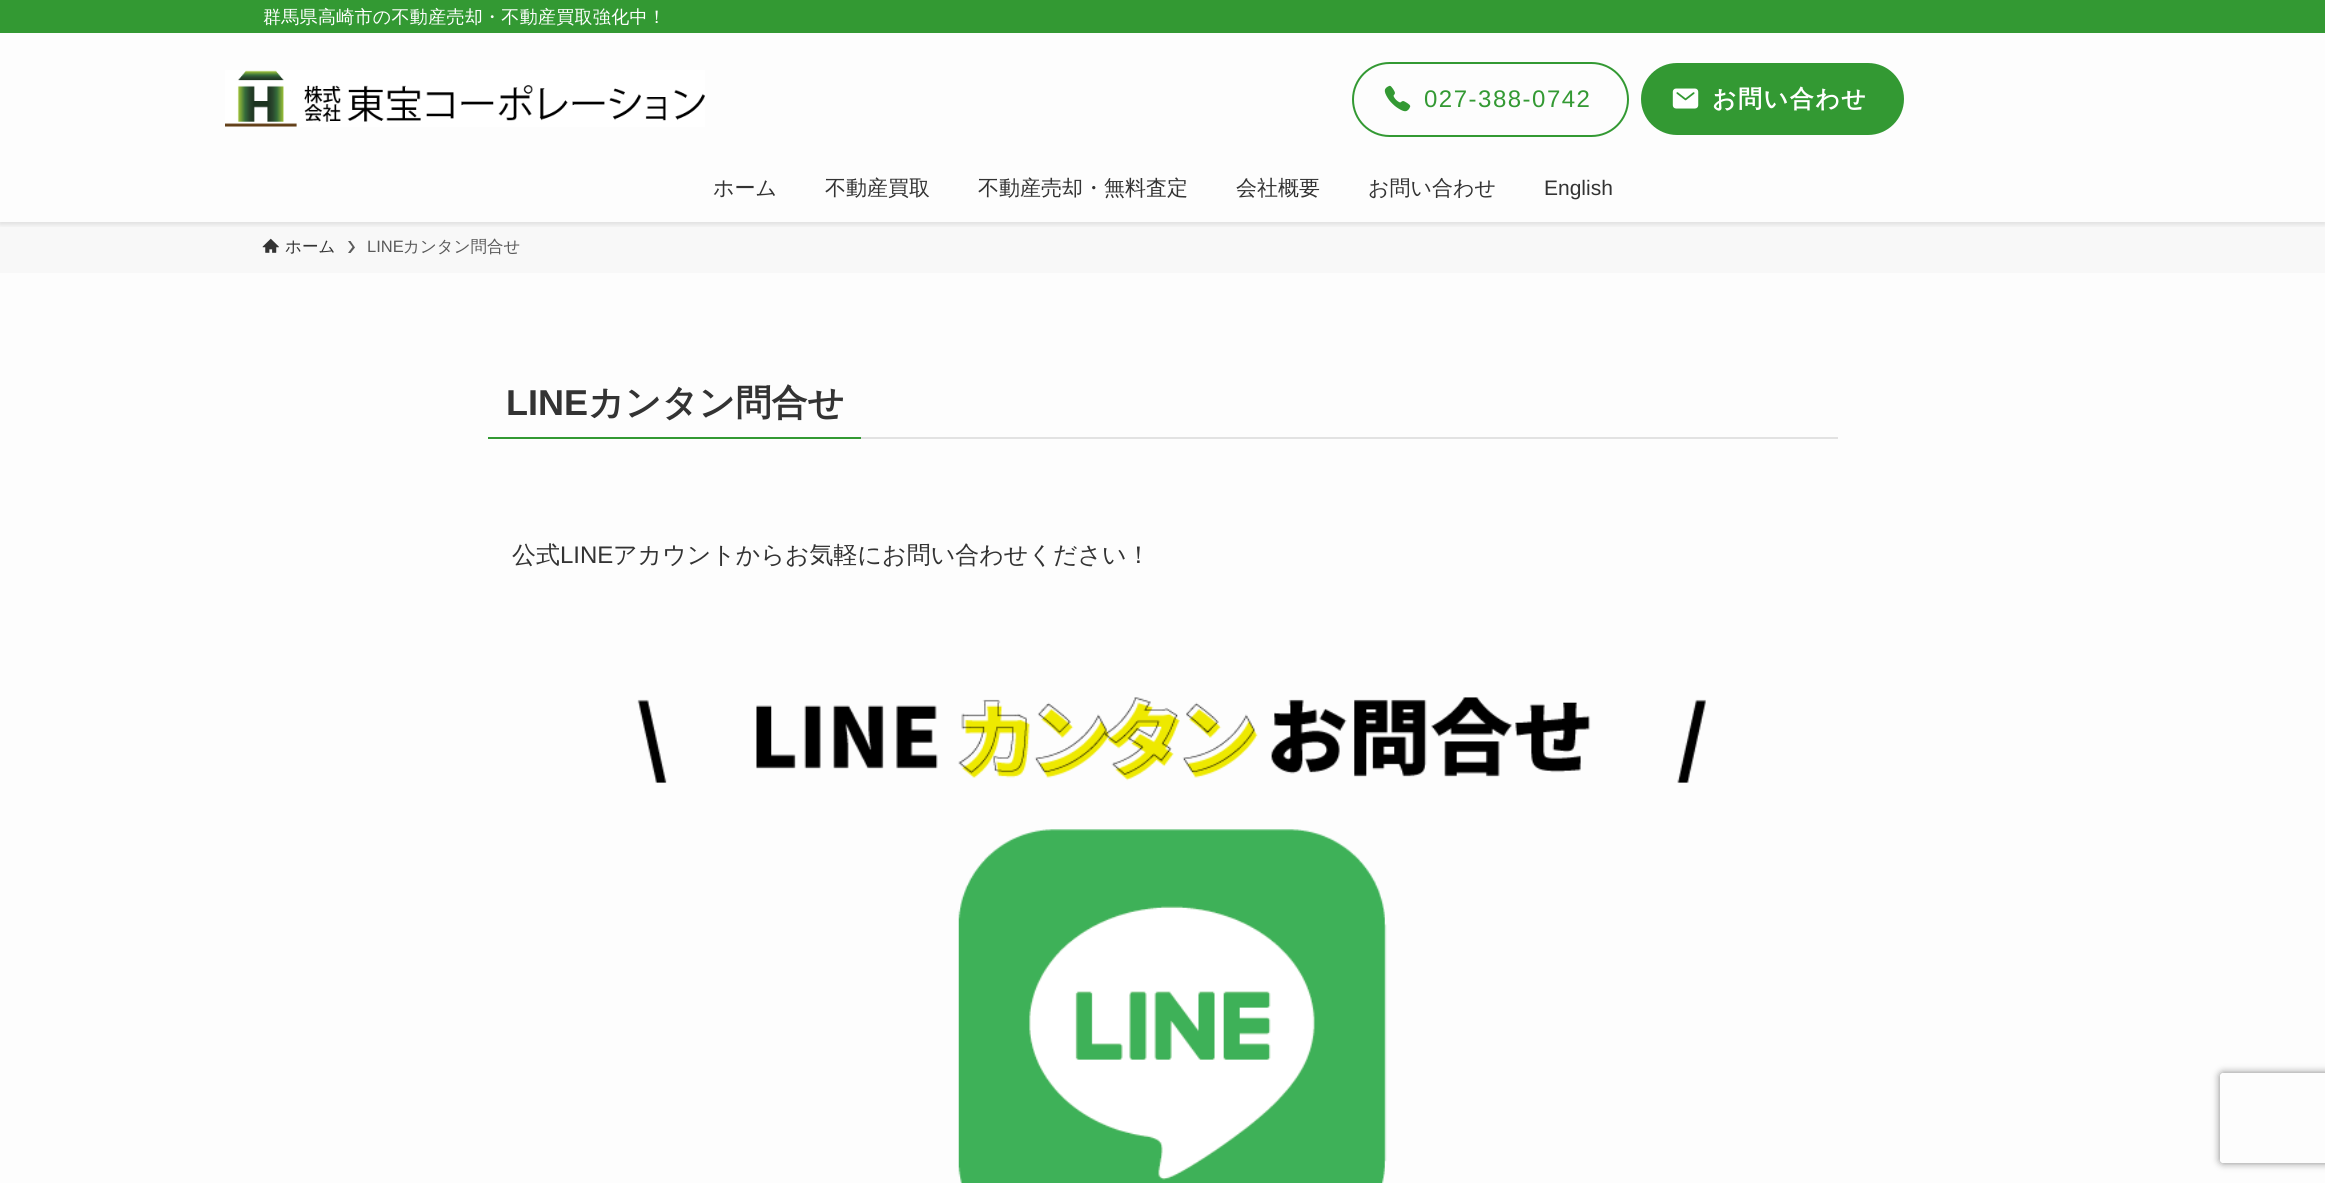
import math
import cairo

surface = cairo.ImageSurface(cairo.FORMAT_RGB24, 2325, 1183)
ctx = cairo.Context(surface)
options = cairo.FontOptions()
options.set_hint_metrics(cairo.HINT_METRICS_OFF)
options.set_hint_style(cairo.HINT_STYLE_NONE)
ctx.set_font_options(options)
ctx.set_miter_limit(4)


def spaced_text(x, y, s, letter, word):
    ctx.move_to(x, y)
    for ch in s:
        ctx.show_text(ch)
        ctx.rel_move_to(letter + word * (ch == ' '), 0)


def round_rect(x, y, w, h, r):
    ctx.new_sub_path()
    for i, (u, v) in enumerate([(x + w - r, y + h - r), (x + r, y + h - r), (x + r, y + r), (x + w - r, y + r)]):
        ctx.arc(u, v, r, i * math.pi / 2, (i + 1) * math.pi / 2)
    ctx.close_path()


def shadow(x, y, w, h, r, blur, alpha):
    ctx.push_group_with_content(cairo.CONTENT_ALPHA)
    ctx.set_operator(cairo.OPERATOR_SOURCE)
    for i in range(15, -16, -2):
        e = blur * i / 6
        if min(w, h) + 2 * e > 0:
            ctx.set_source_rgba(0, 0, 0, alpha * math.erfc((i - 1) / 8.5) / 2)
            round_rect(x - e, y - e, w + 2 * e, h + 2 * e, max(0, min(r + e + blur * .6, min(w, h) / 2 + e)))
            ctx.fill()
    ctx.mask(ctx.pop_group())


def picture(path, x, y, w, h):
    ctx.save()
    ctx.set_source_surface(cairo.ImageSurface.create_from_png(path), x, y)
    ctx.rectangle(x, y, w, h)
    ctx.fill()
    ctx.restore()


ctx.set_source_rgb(0.992, 0.992, 0.992)
ctx.paint()
ctx.set_source_rgb(0.969, 0.969, 0.969)
ctx.rectangle(0, 222, 2325, 51)
ctx.fill()
ctx.save()
ctx.rectangle(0, 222, 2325, 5)
ctx.clip()
ctx.set_source_rgb(0, 0, 0)
shadow(0, 2, 2325, 222, 0, 3, 0.12)
ctx.restore()
ctx.set_source_rgb(0.2, 0.6, 0.2)
ctx.rectangle(0, 0, 2325, 33)
ctx.fill()
ctx.select_font_face("WenQuanYi Zen Hei Medium")
ctx.set_font_size(18)
ctx.set_source_rgb(1, 1, 1)
spaced_text(263, 23, "群馬県高崎市の不動産売却・不動産買取強化中！", 0.3, 0)
picture("img1.png", 225, 70, 480, 57)
round_rect(1353, 63, 275, 73, 36.5)
ctx.set_source_rgb(0.2, 0.6, 0.2)
ctx.stroke()
picture("img2.png", 1384, 85, 27, 27)
ctx.select_font_face("Liberation Sans")
ctx.set_font_size(24)
spaced_text(1424, 107, "027-388-0742", 1.5, 0)
round_rect(1641, 63, 263, 72, 36)
ctx.fill()
picture("img3.png", 1672, 88, 27, 21)
ctx.select_font_face("WenQuanYi Zen Hei", cairo.FONT_SLANT_NORMAL, cairo.FONT_WEIGHT_BOLD)
ctx.set_source_rgb(1, 1, 1)
spaced_text(1712, 107, "お問い合わせ", 1.5, 0)
ctx.select_font_face("WenQuanYi Zen Hei Medium")
ctx.set_font_size(21)
ctx.set_source_rgb(0.2, 0.2, 0.2)
ctx.move_to(713, 195)
ctx.show_text("ホーム")
ctx.move_to(825, 195)
ctx.show_text("不動産買取")
ctx.move_to(978, 195)
ctx.show_text("不動産売却・無料査定")
ctx.move_to(1236, 195)
ctx.show_text("会社概要")
ctx.move_to(1368, 195)
ctx.show_text("お問い合わせ")
ctx.select_font_face("Liberation Sans")
ctx.move_to(1544, 195)
ctx.show_text("English")
picture("img4.png", 262, 238, 17, 15)
ctx.select_font_face("WenQuanYi Zen Hei Medium")
ctx.set_font_size(16.5)
ctx.move_to(285, 252)
ctx.show_text("ホーム")
ctx.set_source_rgb(0.353, 0.353, 0.353)
ctx.new_path()
ctx.move_to(350.5, 241)
ctx.line_to(348, 241)
ctx.line_to(352.5, 247)
ctx.line_to(348, 253)
ctx.line_to(350.5, 253)
ctx.line_to(355, 247.5)
ctx.close_path()
ctx.fill()
ctx.select_font_face("Liberation Sans")
ctx.move_to(367, 252)
ctx.show_text("LINE")
ctx.select_font_face("WenQuanYi Zen Hei Medium")
ctx.move_to(403, 252)
ctx.show_text("カンタン問合せ")
ctx.set_source_rgb(0.886, 0.886, 0.886)
ctx.rectangle(861, 437, 977, 2)
ctx.fill()
ctx.set_source_rgb(0.2, 0.6, 0.2)
ctx.rectangle(488, 437, 373, 2)
ctx.fill()
ctx.select_font_face("Liberation Sans", cairo.FONT_SLANT_NORMAL, cairo.FONT_WEIGHT_BOLD)
ctx.set_font_size(36)
ctx.set_source_rgb(0.2, 0.2, 0.2)
ctx.move_to(506, 415)
ctx.show_text("LINE")
ctx.select_font_face("WenQuanYi Zen Hei", cairo.FONT_SLANT_NORMAL, cairo.FONT_WEIGHT_BOLD)
ctx.move_to(588, 415)
ctx.show_text("カンタン問合せ")
ctx.select_font_face("WenQuanYi Zen Hei Medium")
ctx.set_font_size(24)
ctx.move_to(512, 563)
ctx.show_text("公式")
ctx.select_font_face("Liberation Sans")
ctx.move_to(560, 563)
ctx.show_text("LINE")
ctx.select_font_face("WenQuanYi Zen Hei Medium")
ctx.move_to(613, 563)
ctx.show_text("アカウントからお気軽にお問い合わせください！")
picture("img5.png", 637, 697, 1069, 486)
ctx.save()
ctx.set_fill_rule(cairo.FILL_RULE_EVEN_ODD)
ctx.new_path()
ctx.move_to(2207, 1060)
ctx.line_to(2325, 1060)
ctx.line_to(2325, 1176)
ctx.line_to(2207, 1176)
ctx.close_path()
ctx.move_to(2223, 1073)
ctx.line_to(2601, 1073)
ctx.curve_to(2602.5, 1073, 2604, 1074.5, 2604, 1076)
ctx.line_to(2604, 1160)
ctx.curve_to(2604, 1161.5, 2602.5, 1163, 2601, 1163)
ctx.line_to(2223, 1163)
ctx.curve_to(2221.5, 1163, 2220, 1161.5, 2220, 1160)
ctx.line_to(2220, 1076)
ctx.curve_to(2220, 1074.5, 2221.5, 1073, 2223, 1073)
ctx.close_path()
ctx.clip()
ctx.set_source_rgb(0.502, 0.502, 0.502)
shadow(2220, 1073, 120, 90, 3, 4, 1)
ctx.restore()
surface.write_to_png("page.png")
